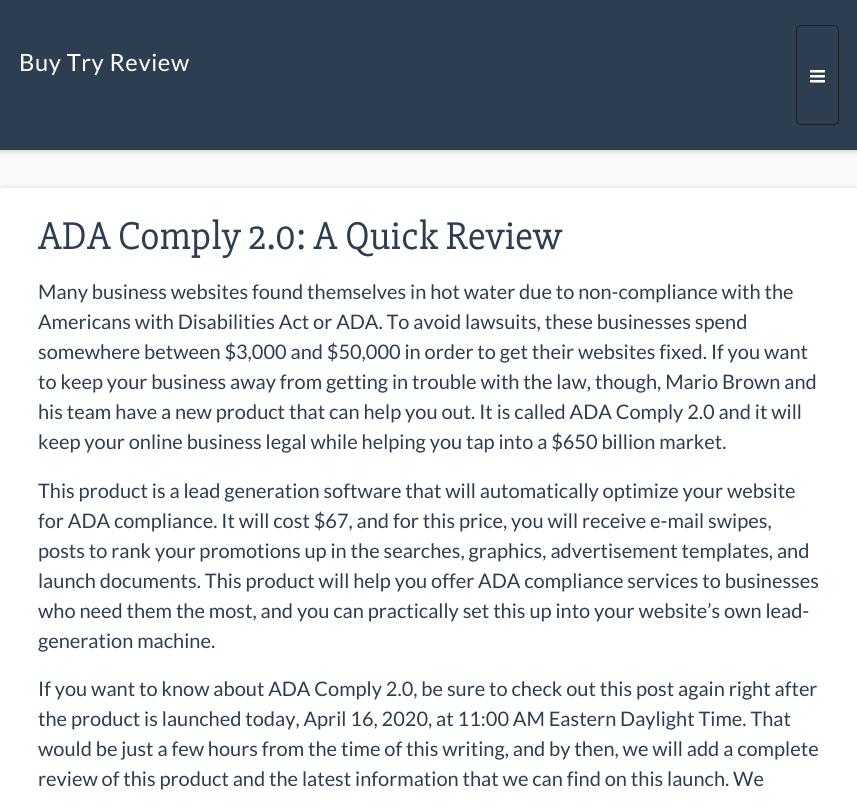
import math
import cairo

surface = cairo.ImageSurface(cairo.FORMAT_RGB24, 857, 811)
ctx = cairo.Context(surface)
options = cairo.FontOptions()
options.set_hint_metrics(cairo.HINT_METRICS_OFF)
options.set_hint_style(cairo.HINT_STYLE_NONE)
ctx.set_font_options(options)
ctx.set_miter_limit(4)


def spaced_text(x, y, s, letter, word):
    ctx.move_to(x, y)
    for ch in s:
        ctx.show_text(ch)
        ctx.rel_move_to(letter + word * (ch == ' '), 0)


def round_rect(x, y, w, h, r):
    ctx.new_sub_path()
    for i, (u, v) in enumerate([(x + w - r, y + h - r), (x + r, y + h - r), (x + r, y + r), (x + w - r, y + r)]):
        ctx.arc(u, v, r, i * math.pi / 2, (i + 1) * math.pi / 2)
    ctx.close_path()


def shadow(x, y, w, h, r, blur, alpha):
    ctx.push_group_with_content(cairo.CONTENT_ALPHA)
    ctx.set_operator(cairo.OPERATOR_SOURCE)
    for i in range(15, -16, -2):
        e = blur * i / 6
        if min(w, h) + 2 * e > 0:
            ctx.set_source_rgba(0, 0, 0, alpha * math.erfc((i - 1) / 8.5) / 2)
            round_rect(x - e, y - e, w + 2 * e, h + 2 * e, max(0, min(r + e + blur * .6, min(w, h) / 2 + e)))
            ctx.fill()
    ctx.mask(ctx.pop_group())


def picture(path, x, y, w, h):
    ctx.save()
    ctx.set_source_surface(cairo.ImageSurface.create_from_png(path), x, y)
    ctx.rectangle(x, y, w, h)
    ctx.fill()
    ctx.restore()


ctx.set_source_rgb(0.98, 0.98, 0.98)
ctx.paint()
ctx.set_source_rgb(0, 0, 0)
shadow(0, 1, 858, 150, 0, 3, 0.2)
ctx.set_source_rgb(0.173, 0.243, 0.314)
ctx.rectangle(0, 0, 857, 150)
ctx.fill()
ctx.select_font_face("Lato")
ctx.set_font_size(23.75)
ctx.set_source_rgb(1, 1, 1)
spaced_text(19, 71, "Buy Try Review", 0.6, 0)
round_rect(796.5, 25.5, 42, 99, 4.5)
ctx.set_source_rgb(0.102, 0.141, 0.184)
ctx.set_line_width(1)
ctx.stroke()
picture("img1.png", 810, 70, 15, 13)
ctx.set_source_rgb(0, 0, 0)
shadow(0, 189, 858, 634, 2.5, 3, 0.2)
ctx.set_source_rgb(1, 1, 1)
round_rect(0, 188, 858, 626, 2.5)
ctx.fill()
ctx.select_font_face("Slabo 27px")
ctx.set_font_size(40)
ctx.set_source_rgb(0.173, 0.243, 0.314)
ctx.move_to(38, 249)
ctx.show_text("ADA Comply 2.0: A Quick Review")
ctx.select_font_face("Lato")
ctx.set_font_size(20)
ctx.move_to(38, 299)
ctx.show_text("Many business websites found themselves in hot water due to non-compliance with the")
ctx.move_to(38, 329)
ctx.show_text("Americans with Disabilities Act or ADA. To avoid lawsuits, these businesses spend")
ctx.move_to(38, 359)
ctx.show_text("somewhere between $3,000 and $50,000 in order to get their websites fixed. If you want")
ctx.move_to(38, 389)
ctx.show_text("to keep your business away from getting in trouble with the law, though, Mario Brown and")
ctx.move_to(38, 419)
ctx.show_text("his team have a new product that can help you out. It is called ADA Comply 2.0 and it will")
ctx.move_to(38, 449)
ctx.show_text("keep your online business legal while helping you tap into a $650 billion market.")
ctx.move_to(38, 498)
ctx.show_text("This product is a lead generation software that will automatically optimize your website")
ctx.move_to(38, 528)
ctx.show_text("for ADA compliance. It will cost $67, and for this price, you will receive e-mail swipes,")
ctx.move_to(38, 558)
ctx.show_text("posts to rank your promotions up in the searches, graphics, advertisement templates, and")
ctx.move_to(38, 588)
ctx.show_text("launch documents. This product will help you offer ADA compliance services to businesses")
ctx.move_to(38, 618)
ctx.show_text("who need them the most, and you can practically set this up into your website’s own lead-")
ctx.move_to(38, 648)
ctx.show_text("generation machine.")
ctx.move_to(38, 696)
ctx.show_text("If you want to know about ADA Comply 2.0, be sure to check out this post again right after")
ctx.move_to(38, 726)
ctx.show_text("the product is launched today, April 16, 2020, at 11:00 AM Eastern Daylight Time. That")
ctx.move_to(38, 756)
ctx.show_text("would be just a few hours from the time of this writing, and by then, we will add a complete")
ctx.move_to(38, 786)
ctx.show_text("review of this product and the latest information that we can find on this launch. We")
surface.write_to_png("page.png")
